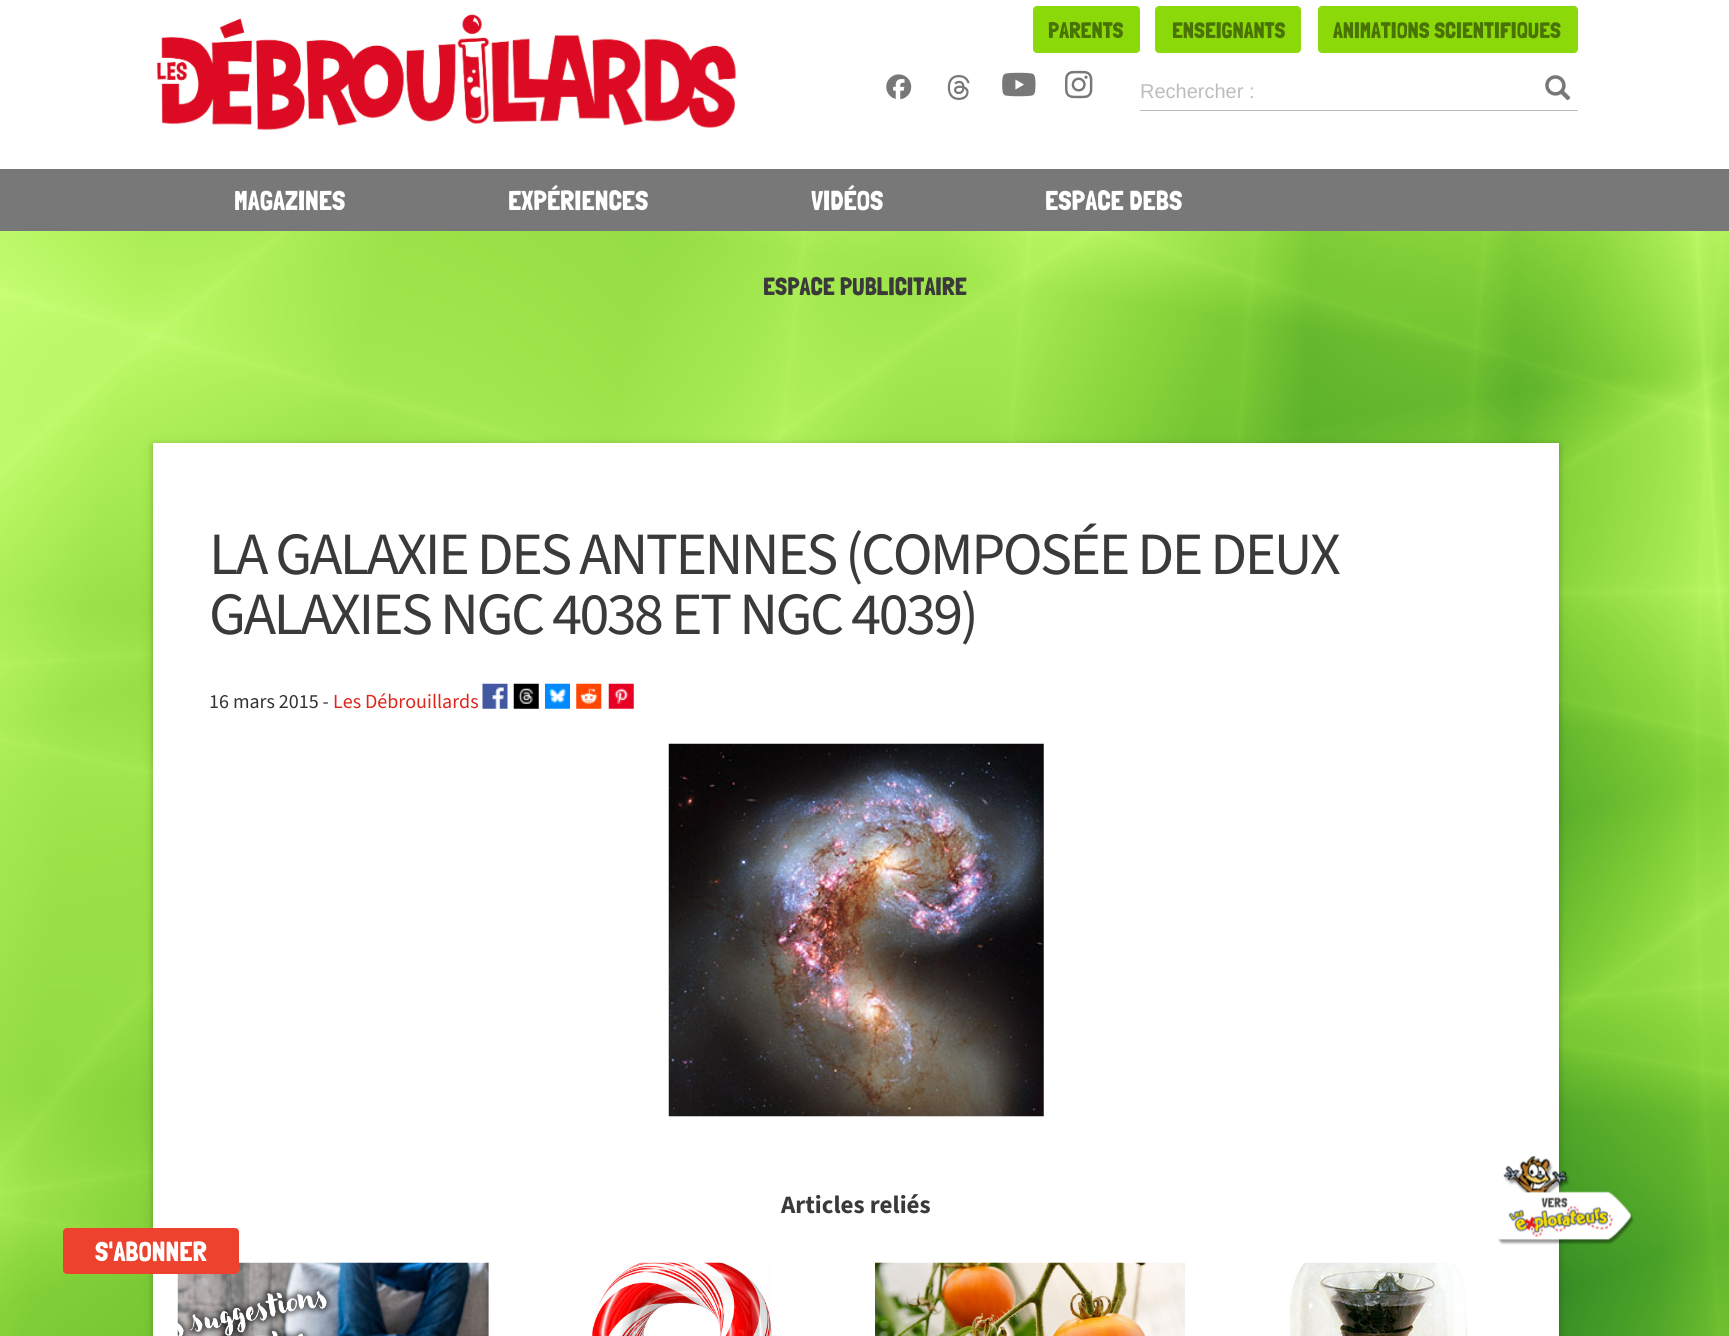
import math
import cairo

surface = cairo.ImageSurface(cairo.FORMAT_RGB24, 1729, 1336)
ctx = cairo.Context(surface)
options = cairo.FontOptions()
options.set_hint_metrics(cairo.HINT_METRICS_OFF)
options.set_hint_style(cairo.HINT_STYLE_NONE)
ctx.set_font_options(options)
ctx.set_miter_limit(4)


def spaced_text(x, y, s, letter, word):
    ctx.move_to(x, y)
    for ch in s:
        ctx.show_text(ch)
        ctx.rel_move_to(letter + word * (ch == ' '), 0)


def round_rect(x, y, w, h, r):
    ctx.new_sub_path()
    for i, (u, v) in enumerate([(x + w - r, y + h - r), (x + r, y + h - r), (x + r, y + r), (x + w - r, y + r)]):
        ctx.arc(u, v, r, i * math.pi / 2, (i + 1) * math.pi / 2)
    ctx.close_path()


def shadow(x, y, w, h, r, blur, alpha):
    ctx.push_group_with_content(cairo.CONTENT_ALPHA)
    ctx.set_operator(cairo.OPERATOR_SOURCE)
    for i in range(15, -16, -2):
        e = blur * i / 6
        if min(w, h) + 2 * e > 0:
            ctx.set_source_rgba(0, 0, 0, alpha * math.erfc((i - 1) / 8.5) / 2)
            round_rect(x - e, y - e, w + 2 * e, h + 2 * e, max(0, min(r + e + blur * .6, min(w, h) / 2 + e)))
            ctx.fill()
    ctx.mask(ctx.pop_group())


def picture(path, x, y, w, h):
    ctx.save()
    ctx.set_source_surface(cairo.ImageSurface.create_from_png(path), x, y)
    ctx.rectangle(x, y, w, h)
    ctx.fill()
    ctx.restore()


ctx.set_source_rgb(1, 1, 1)
ctx.paint()
picture("img1.png", 0, 231, 1729, 1105)
ctx.set_source_rgb(0.471, 0.471, 0.471)
ctx.rectangle(0, 169, 1729, 62)
ctx.fill()
picture("img2.png", 156, 14, 581, 117)
ctx.set_source_rgb(0.545, 0.851, 0.039)
round_rect(1033, 6, 107, 47, 4)
ctx.fill()
ctx.select_font_face("Londrina Solid")
ctx.set_font_size(22.5)
ctx.set_source_rgb(0.286, 0.451, 0.02)
ctx.move_to(1048, 38)
ctx.show_text("PARENTS")
ctx.set_source_rgb(0.545, 0.851, 0.039)
round_rect(1155, 6, 146, 47, 4)
ctx.fill()
ctx.set_source_rgb(0.286, 0.451, 0.02)
ctx.move_to(1172, 38)
ctx.show_text("ENSEIGNANTS")
ctx.set_source_rgb(0.545, 0.851, 0.039)
round_rect(1318, 6, 260, 47, 4)
ctx.fill()
ctx.set_source_rgb(0.286, 0.451, 0.02)
ctx.move_to(1333, 38)
ctx.show_text("ANIMATIONS SCIENTIFIQUES")
picture("img3.png", 886, 74, 26, 26)
picture("img4.png", 947, 75, 23, 25)
picture("img5.png", 1002, 72, 34, 25)
picture("img6.png", 1065, 70, 28, 29)
ctx.select_font_face("Liberation Sans")
ctx.set_font_size(20)
ctx.set_source_rgb(0.741, 0.741, 0.741)
ctx.move_to(1140, 98)
ctx.show_text("Rechercher :")
picture("img7.png", 1545, 75, 26, 26)
ctx.rectangle(1140, 110, 438, 1)
ctx.fill()
ctx.select_font_face("Londrina Solid")
ctx.set_font_size(27.5)
ctx.set_source_rgb(1, 1, 1)
ctx.move_to(234, 210)
ctx.show_text("MAGAZINES")
ctx.move_to(508, 210)
ctx.show_text("EXPÉRIENCES")
ctx.move_to(811, 210)
ctx.show_text("VIDÉOS")
ctx.move_to(1045, 210)
ctx.show_text("ESPACE DEBS")
ctx.set_font_size(25)
ctx.set_source_rgb(0.227, 0.227, 0.227)
ctx.move_to(763, 295)
ctx.show_text("ESPACE PUBLICITAIRE")
ctx.set_source_rgb(0, 0, 0)
shadow(153, 445, 1406, 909, 0, 6, 0.12)
shadow(153, 445, 1406, 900, 0, 3, 0.16)
ctx.set_source_rgb(1, 1, 1)
ctx.rectangle(153, 443, 1406, 893)
ctx.fill()
ctx.select_font_face("Source Sans 3")
ctx.set_font_size(60)
ctx.set_source_rgb(0.227, 0.227, 0.227)
spaced_text(209, 574, "LA GALAXIE DES ANTENNES (COMPOSÉE DE DEUX", -2.5, 0)
spaced_text(209, 634, "GALAXIES NGC 4038 ET NGC 4039)", -2.5, 0)
ctx.set_font_size(20)
ctx.set_source_rgb(0.2, 0.2, 0.2)
ctx.move_to(209, 708)
ctx.show_text("16 mars 2015 -")
ctx.set_source_rgb(0.867, 0.145, 0.106)
ctx.move_to(333, 708)
ctx.show_text("Les Débrouillards")
picture("img8.png", 482, 683, 26, 26)
picture("img9.png", 513, 683, 26, 26)
picture("img10.png", 545, 683, 25, 26)
picture("img11.png", 576, 683, 26, 26)
picture("img12.png", 608, 683, 26, 26)
picture("img13.png", 668, 743, 376, 374)
ctx.select_font_face("Source Sans 3", cairo.FONT_SLANT_NORMAL, cairo.FONT_WEIGHT_BOLD)
ctx.set_font_size(25)
ctx.set_source_rgb(0.227, 0.227, 0.227)
ctx.move_to(781, 1213)
ctx.show_text("Articles reliés")
picture("img14.png", 177, 1262, 312, 74)
picture("img15.png", 592, 1262, 180, 74)
picture("img16.png", 875, 1262, 310, 74)
picture("img17.png", 1289, 1262, 179, 74)
picture("img18.png", 1498, 1155, 136, 90)
ctx.set_source_rgb(0.929, 0.259, 0.18)
round_rect(63, 1228, 176, 46, 4)
ctx.fill()
ctx.select_font_face("Londrina Solid")
ctx.set_font_size(27.5)
ctx.set_source_rgb(1, 1, 1)
ctx.move_to(95, 1261)
ctx.show_text("S'ABONNER")
surface.write_to_png("page.png")
